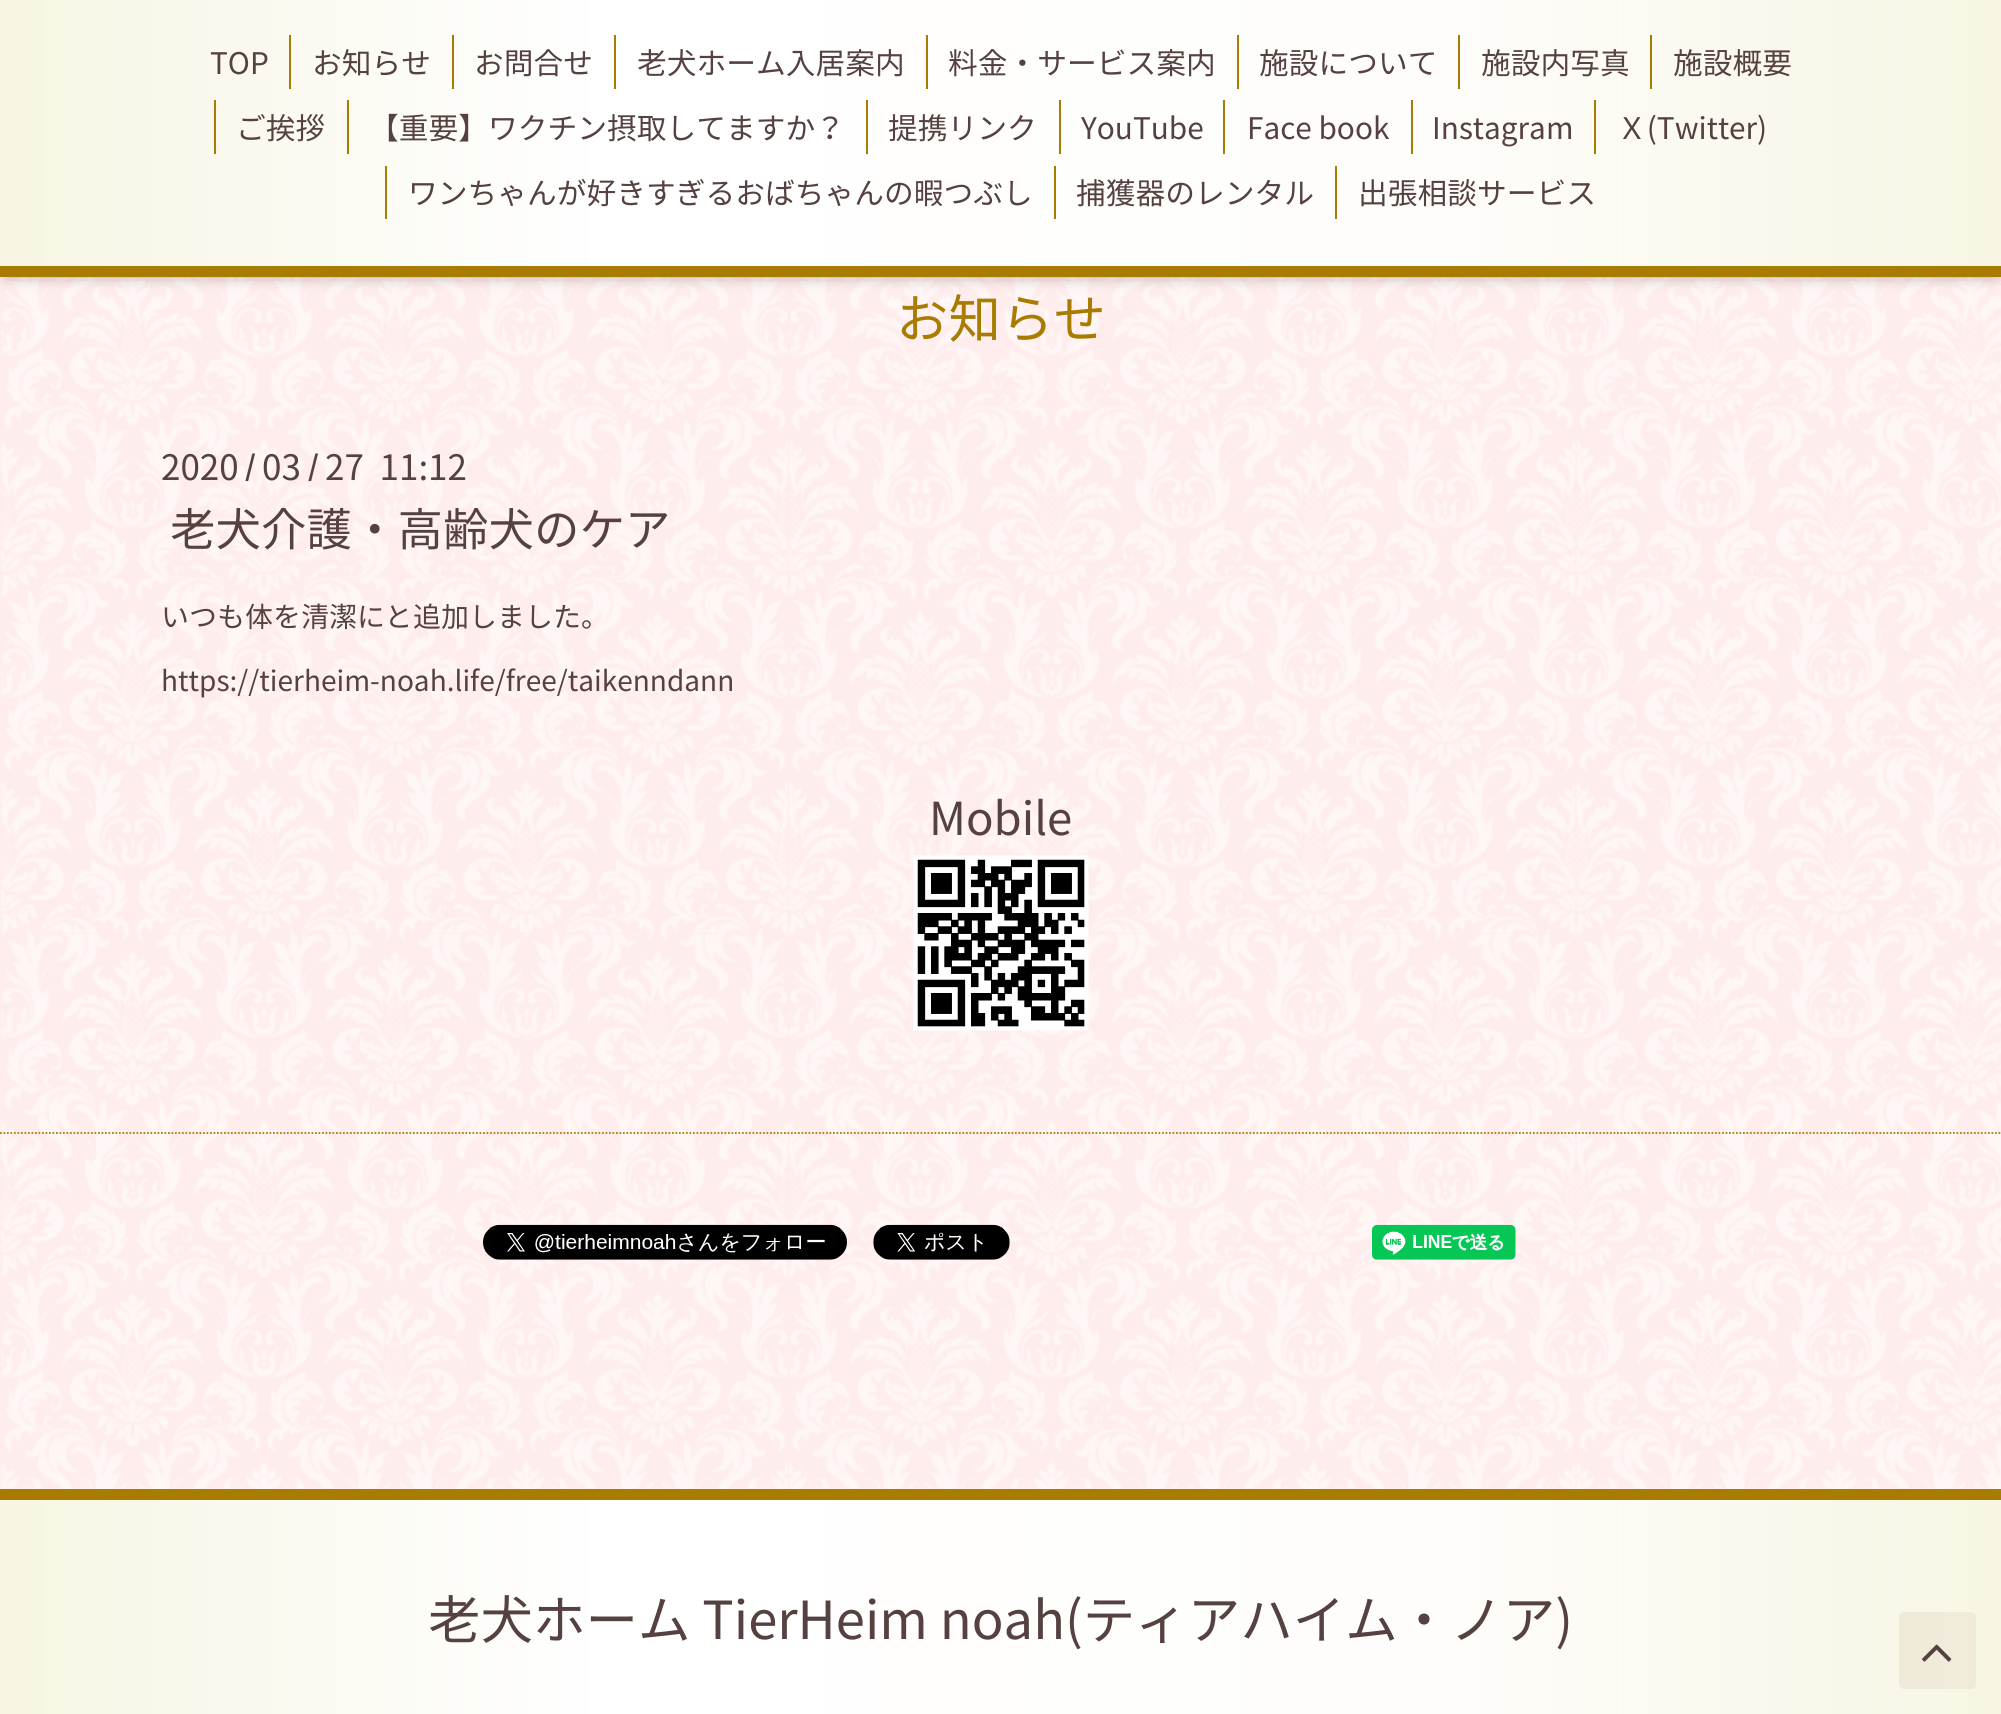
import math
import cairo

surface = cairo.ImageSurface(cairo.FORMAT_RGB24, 2001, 1714)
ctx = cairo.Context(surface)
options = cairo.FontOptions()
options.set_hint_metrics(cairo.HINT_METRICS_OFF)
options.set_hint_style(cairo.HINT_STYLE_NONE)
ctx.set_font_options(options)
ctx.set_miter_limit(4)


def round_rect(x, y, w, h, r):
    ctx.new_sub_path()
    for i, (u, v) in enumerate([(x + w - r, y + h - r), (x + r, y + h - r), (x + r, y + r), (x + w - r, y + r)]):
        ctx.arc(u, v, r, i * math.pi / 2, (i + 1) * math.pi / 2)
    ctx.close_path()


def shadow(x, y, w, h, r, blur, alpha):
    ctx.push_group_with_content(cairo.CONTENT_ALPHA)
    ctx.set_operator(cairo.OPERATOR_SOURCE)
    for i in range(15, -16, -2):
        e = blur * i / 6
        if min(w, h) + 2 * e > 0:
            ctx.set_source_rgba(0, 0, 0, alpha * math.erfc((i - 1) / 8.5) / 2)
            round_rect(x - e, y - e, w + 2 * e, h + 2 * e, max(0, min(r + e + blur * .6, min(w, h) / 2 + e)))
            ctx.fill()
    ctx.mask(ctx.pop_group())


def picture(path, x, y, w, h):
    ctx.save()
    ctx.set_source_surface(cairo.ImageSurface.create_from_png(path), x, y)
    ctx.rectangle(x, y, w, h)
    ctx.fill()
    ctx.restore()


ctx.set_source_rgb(1, 0.925, 0.922)
ctx.paint()
picture("img1.png", 0, 277, 2001, 1212)
ctx.set_source_rgb(0, 0, 0)
shadow(7, 9, 1988, 262, 0, 9, 0.6)
picture("img2.png", 0, 0, 2001, 266)
ctx.set_source_rgb(0.659, 0.486, 0)
ctx.rectangle(0, 266, 2001, 11)
ctx.fill()
ctx.select_font_face("Noto Sans JP")
ctx.set_font_size(29.75)
ctx.set_source_rgb(0.337, 0.255, 0.255)
ctx.move_to(210, 74)
ctx.show_text("TOP")
ctx.set_source_rgb(0.659, 0.486, 0)
ctx.rectangle(289, 35, 2, 54)
ctx.fill()
ctx.set_source_rgb(0.337, 0.255, 0.255)
ctx.move_to(312, 74)
ctx.show_text("お知らせ")
ctx.set_source_rgb(0.659, 0.486, 0)
ctx.rectangle(452, 35, 2, 54)
ctx.fill()
ctx.set_source_rgb(0.337, 0.255, 0.255)
ctx.move_to(474, 74)
ctx.show_text("お問合せ")
ctx.set_source_rgb(0.659, 0.486, 0)
ctx.rectangle(614, 35, 2, 54)
ctx.fill()
ctx.set_source_rgb(0.337, 0.255, 0.255)
ctx.move_to(637, 74)
ctx.show_text("老犬ホーム入居案内")
ctx.set_source_rgb(0.659, 0.486, 0)
ctx.rectangle(926, 35, 2, 54)
ctx.fill()
ctx.set_source_rgb(0.337, 0.255, 0.255)
ctx.move_to(948, 74)
ctx.show_text("料金・サービス案内")
ctx.set_source_rgb(0.659, 0.486, 0)
ctx.rectangle(1237, 35, 2, 54)
ctx.fill()
ctx.set_source_rgb(0.337, 0.255, 0.255)
ctx.move_to(1259, 74)
ctx.show_text("施設について")
ctx.set_source_rgb(0.659, 0.486, 0)
ctx.rectangle(1458, 35, 2, 54)
ctx.fill()
ctx.set_source_rgb(0.337, 0.255, 0.255)
ctx.move_to(1481, 74)
ctx.show_text("施設内写真")
ctx.set_source_rgb(0.659, 0.486, 0)
ctx.rectangle(1650, 35, 2, 54)
ctx.fill()
ctx.set_source_rgb(0.337, 0.255, 0.255)
ctx.move_to(1673, 74)
ctx.show_text("施設概要")
ctx.set_source_rgb(0.659, 0.486, 0)
ctx.rectangle(214, 100, 2, 54)
ctx.fill()
ctx.set_source_rgb(0.337, 0.255, 0.255)
ctx.move_to(236, 139)
ctx.show_text("ご挨拶")
ctx.set_source_rgb(0.659, 0.486, 0)
ctx.rectangle(347, 100, 2, 54)
ctx.fill()
ctx.set_source_rgb(0.337, 0.255, 0.255)
ctx.move_to(369, 139)
ctx.show_text("【重要】ワクチン摂取してますか？")
ctx.set_source_rgb(0.659, 0.486, 0)
ctx.rectangle(866, 100, 2, 54)
ctx.fill()
ctx.set_source_rgb(0.337, 0.255, 0.255)
ctx.move_to(888, 139)
ctx.show_text("提携リンク")
ctx.set_source_rgb(0.659, 0.486, 0)
ctx.rectangle(1059, 100, 2, 54)
ctx.fill()
ctx.set_source_rgb(0.337, 0.255, 0.255)
ctx.move_to(1081, 139)
ctx.show_text("YouTube")
ctx.set_source_rgb(0.659, 0.486, 0)
ctx.rectangle(1223, 100, 2, 54)
ctx.fill()
ctx.set_source_rgb(0.337, 0.255, 0.255)
ctx.move_to(1247, 139)
ctx.show_text("Face book")
ctx.set_source_rgb(0.659, 0.486, 0)
ctx.rectangle(1411, 100, 2, 54)
ctx.fill()
ctx.set_source_rgb(0.337, 0.255, 0.255)
ctx.move_to(1432, 139)
ctx.show_text("Instagram")
ctx.set_source_rgb(0.659, 0.486, 0)
ctx.rectangle(1594, 100, 2, 54)
ctx.fill()
ctx.set_source_rgb(0.337, 0.255, 0.255)
ctx.move_to(1617, 139)
ctx.show_text("Ｘ(Twitter)")
ctx.set_source_rgb(0.659, 0.486, 0)
ctx.rectangle(385, 166, 2, 53)
ctx.fill()
ctx.set_source_rgb(0.337, 0.255, 0.255)
ctx.move_to(408, 204)
ctx.show_text("ワンちゃんが好きすぎるおばちゃんの暇つぶし")
ctx.set_source_rgb(0.659, 0.486, 0)
ctx.rectangle(1054, 166, 2, 53)
ctx.fill()
ctx.set_source_rgb(0.337, 0.255, 0.255)
ctx.move_to(1076, 204)
ctx.show_text("捕獲器のレンタル")
ctx.set_source_rgb(0.659, 0.486, 0)
ctx.rectangle(1335, 166, 2, 53)
ctx.fill()
ctx.set_source_rgb(0.337, 0.255, 0.255)
ctx.move_to(1358, 204)
ctx.show_text("出張相談サービス")
ctx.set_font_size(52.5)
ctx.set_source_rgb(0.659, 0.486, 0)
ctx.move_to(896, 338)
ctx.show_text("お知らせ")
ctx.set_font_size(35)
ctx.set_source_rgb(0.337, 0.255, 0.255)
ctx.move_to(161, 480)
ctx.show_text("2020")
ctx.select_font_face("Noto Sans JP", cairo.FONT_SLANT_NORMAL, cairo.FONT_WEIGHT_BOLD)
ctx.set_font_size(28)
ctx.move_to(245, 476)
ctx.show_text("/")
ctx.select_font_face("Noto Sans JP")
ctx.set_font_size(35)
ctx.move_to(262, 480)
ctx.show_text("03")
ctx.select_font_face("Noto Sans JP", cairo.FONT_SLANT_NORMAL, cairo.FONT_WEIGHT_BOLD)
ctx.set_font_size(28)
ctx.move_to(308, 476)
ctx.show_text("/")
ctx.select_font_face("Noto Sans JP")
ctx.set_font_size(35)
ctx.move_to(325, 480)
ctx.show_text("27  11:12")
ctx.set_font_size(45.5)
ctx.move_to(170, 546)
ctx.show_text("老犬介護・高齢犬のケア")
ctx.set_font_size(28)
ctx.move_to(161, 627)
ctx.show_text("いつも体を清潔にと追加しました。")
ctx.move_to(161, 691)
ctx.show_text("https://tierheim-noah.life/free/taikenndann")
ctx.set_font_size(45.5)
ctx.move_to(929, 835)
ctx.show_text("Mobile")
picture("img3.png", 913, 855, 176, 176)
ctx.new_path()
ctx.move_to(0, 1133)
ctx.line_to(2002, 1133)
ctx.set_source_rgb(0.659, 0.486, 0)
ctx.set_line_width(1.8)
ctx.set_dash([1.75, 1.75])
ctx.stroke()
picture("img4.png", 483, 1224, 364, 36)
picture("img5.png", 873, 1224, 137, 36)
picture("img6.png", 1372, 1224, 144, 36)
picture("img7.png", 0, 1500, 2001, 214)
ctx.rectangle(0, 1489, 2001, 11)
ctx.fill()
ctx.set_font_size(52.5)
ctx.set_source_rgb(0.337, 0.255, 0.255)
ctx.move_to(428, 1639)
ctx.show_text("老犬ホーム TierHeim noah(ティアハイム・ノア)")
ctx.set_source_rgba(0.929, 0.902, 0.839, 0.7)
round_rect(1899, 1612, 77, 77, 5)
ctx.fill()
picture("img8.png", 1922, 1644, 30, 18)
surface.write_to_png("page.png")
